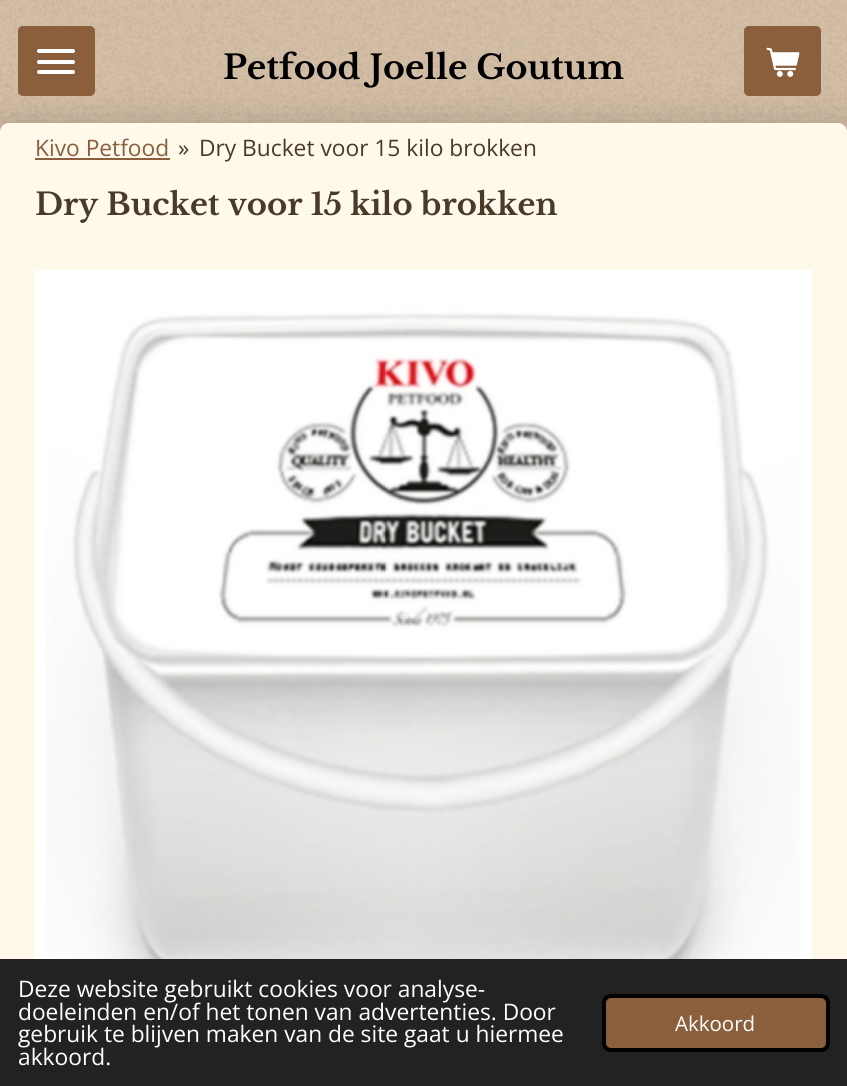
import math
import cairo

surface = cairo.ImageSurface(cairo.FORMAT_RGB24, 847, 1086)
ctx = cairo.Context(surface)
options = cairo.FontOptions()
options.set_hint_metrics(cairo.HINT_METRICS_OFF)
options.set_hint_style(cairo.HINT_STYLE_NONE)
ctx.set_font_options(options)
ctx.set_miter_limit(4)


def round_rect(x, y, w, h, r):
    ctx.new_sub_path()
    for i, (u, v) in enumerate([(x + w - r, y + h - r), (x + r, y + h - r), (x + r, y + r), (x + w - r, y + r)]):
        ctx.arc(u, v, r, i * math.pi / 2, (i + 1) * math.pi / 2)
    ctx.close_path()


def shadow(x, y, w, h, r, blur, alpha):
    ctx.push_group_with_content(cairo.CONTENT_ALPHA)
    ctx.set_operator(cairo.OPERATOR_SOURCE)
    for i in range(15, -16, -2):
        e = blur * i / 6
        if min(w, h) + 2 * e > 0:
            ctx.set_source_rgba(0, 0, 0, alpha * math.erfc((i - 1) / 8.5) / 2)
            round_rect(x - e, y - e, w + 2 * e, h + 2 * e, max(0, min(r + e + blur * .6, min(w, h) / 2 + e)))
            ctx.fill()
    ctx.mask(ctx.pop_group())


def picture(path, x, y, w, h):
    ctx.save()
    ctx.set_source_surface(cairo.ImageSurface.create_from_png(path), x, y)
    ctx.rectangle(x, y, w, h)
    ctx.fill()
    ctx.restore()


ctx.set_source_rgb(0.831, 0.745, 0.651)
ctx.paint()
picture("img1.png", 0, 0, 847, 127)
ctx.set_source_rgb(0, 0, 0)
shadow(0, 131, 847, 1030, 9, 22, 0.25)
ctx.set_source_rgb(0.545, 0.369, 0.235)
round_rect(18, 26, 77, 70, 5)
ctx.fill()
ctx.set_source_rgb(1, 1, 1)
round_rect(37, 60, 38, 4, 2)
ctx.fill()
round_rect(37, 49, 38, 4, 2)
ctx.fill()
round_rect(37, 70, 38, 4, 2)
ctx.fill()
ctx.select_font_face("Libre Baskerville", cairo.FONT_SLANT_NORMAL, cairo.FONT_WEIGHT_BOLD)
ctx.set_font_size(33.25)
ctx.set_source_rgb(0, 0, 0)
ctx.move_to(223, 79)
ctx.show_text("Petfood Joelle Goutum")
ctx.set_source_rgb(0.545, 0.369, 0.235)
round_rect(744, 26, 77, 70, 5)
ctx.fill()
picture("img2.png", 766, 47, 34, 30)
ctx.set_source_rgb(0.996, 0.976, 0.918)
round_rect(0, 123, 847, 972, 9)
ctx.fill()
ctx.select_font_face("Open Sans")
ctx.set_font_size(22.75)
ctx.set_source_rgb(0.545, 0.369, 0.235)
ctx.move_to(35, 156)
ctx.show_text("Kivo Petfood")
ctx.rectangle(35, 158, 135, 2)
ctx.fill()
ctx.set_source_rgb(0.29, 0.231, 0.157)
ctx.move_to(178, 156)
ctx.show_text("»")
ctx.move_to(199, 156)
ctx.show_text("Dry Bucket voor 15 kilo brokken")
ctx.select_font_face("Libre Baskerville", cairo.FONT_SLANT_NORMAL, cairo.FONT_WEIGHT_BOLD)
ctx.set_font_size(30.6)
ctx.move_to(35, 215)
ctx.show_text("Dry Bucket voor 15 kilo brokken")
picture("img3.png", 35, 270, 777, 689)
ctx.set_source_rgb(0.133, 0.133, 0.133)
ctx.rectangle(0, 959, 847, 127)
ctx.fill()
ctx.select_font_face("Open Sans")
ctx.set_font_size(22.75)
ctx.set_source_rgb(1, 1, 1)
ctx.move_to(18, 997)
ctx.show_text("Deze website gebruikt cookies voor analyse-")
ctx.move_to(18, 1020)
ctx.show_text("doeleinden en/of het tonen van advertenties. Door")
ctx.move_to(18, 1042)
ctx.show_text("gebruik te blijven maken van de site gaat u hiermee")
ctx.move_to(18, 1065)
ctx.show_text("akkoord.")
ctx.set_source_rgb(0.545, 0.369, 0.235)
round_rect(604, 996, 224, 54, 7)
ctx.fill_preserve()
ctx.set_source_rgb(0, 0, 0)
ctx.set_line_width(4)
ctx.stroke()
ctx.set_font_size(20.5)
ctx.set_source_rgb(1, 1, 1)
ctx.move_to(675, 1031)
ctx.show_text("Akkoord")
surface.write_to_png("page.png")
